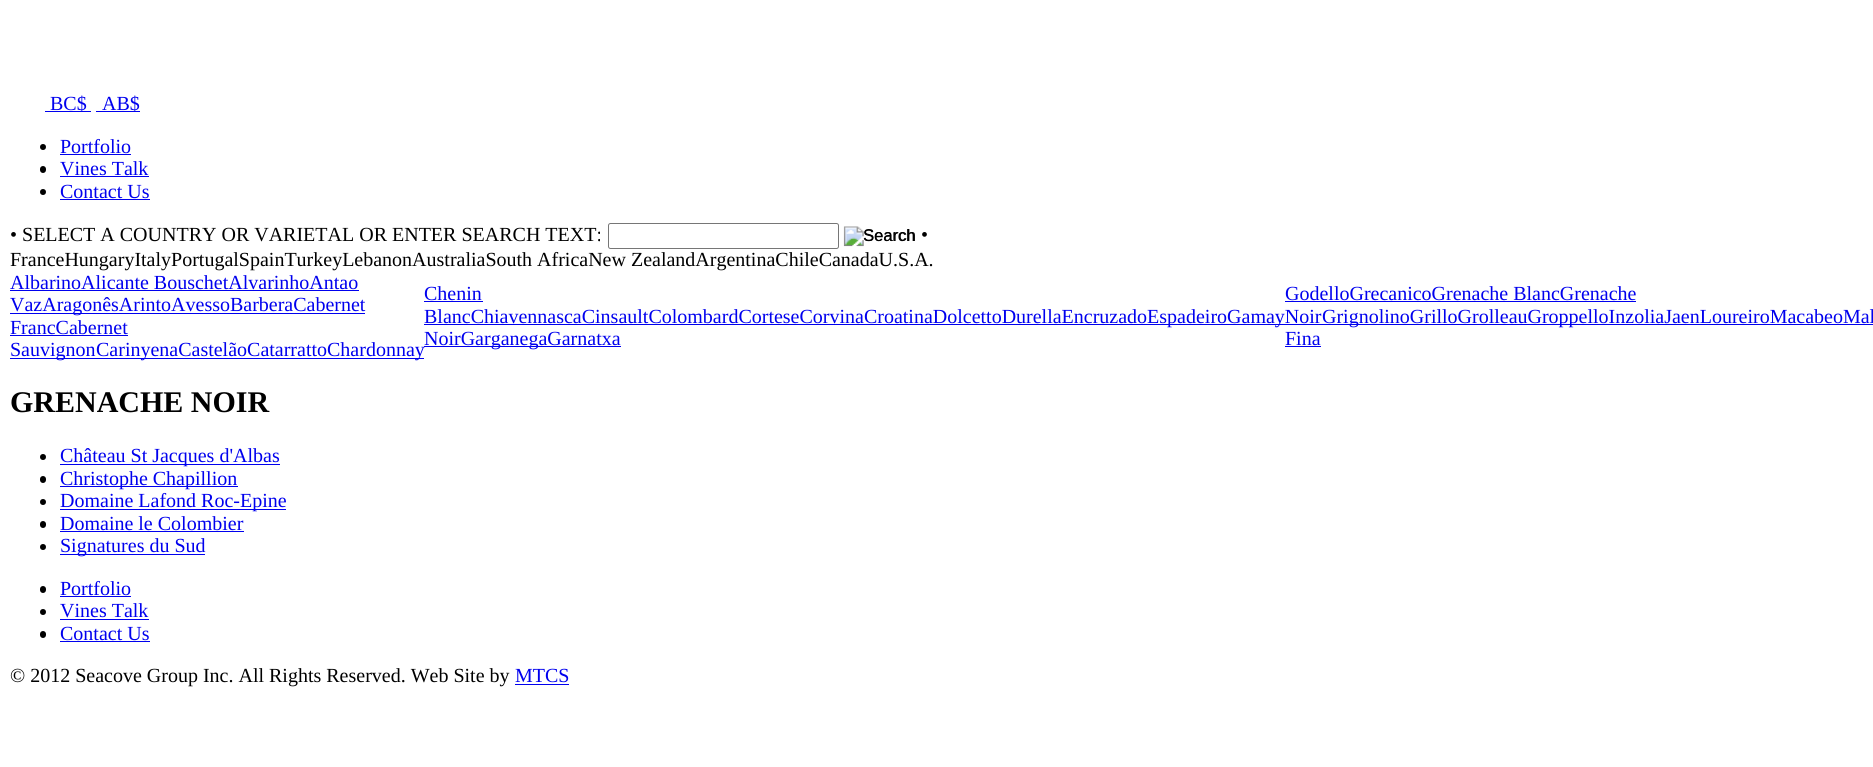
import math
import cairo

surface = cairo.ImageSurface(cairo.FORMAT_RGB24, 1873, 767)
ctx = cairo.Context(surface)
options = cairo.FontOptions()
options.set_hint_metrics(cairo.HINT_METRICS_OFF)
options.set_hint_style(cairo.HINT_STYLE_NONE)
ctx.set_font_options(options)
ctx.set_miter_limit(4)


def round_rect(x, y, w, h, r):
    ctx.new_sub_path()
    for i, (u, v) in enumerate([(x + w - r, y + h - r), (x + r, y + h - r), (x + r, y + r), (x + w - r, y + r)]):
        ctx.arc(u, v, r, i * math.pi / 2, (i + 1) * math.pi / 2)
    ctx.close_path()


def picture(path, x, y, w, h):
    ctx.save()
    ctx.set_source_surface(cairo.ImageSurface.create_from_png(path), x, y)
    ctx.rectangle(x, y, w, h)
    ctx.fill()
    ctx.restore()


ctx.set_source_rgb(1, 1, 1)
ctx.paint()
ctx.set_source_rgb(0, 0, 0.933)
ctx.rectangle(45, 111, 46, 1)
ctx.fill()
ctx.select_font_face("Liberation Serif")
ctx.set_font_size(20)
ctx.move_to(50, 110)
ctx.show_text("BC$")
ctx.rectangle(96, 111, 44, 1)
ctx.fill()
ctx.move_to(102, 110)
ctx.show_text("AB$")
ctx.set_source_rgb(0, 0, 0)
ctx.new_path()
ctx.arc(43, 147, 3, 0, 2 * math.pi)
ctx.fill()
ctx.set_source_rgb(0, 0, 0.933)
ctx.move_to(60, 153)
ctx.show_text("Portfolio")
ctx.rectangle(60, 154, 71, 1)
ctx.fill()
ctx.set_source_rgb(0, 0, 0)
round_rect(40, 166, 6, 7, 3)
ctx.fill()
ctx.set_source_rgb(0, 0, 0.933)
ctx.move_to(60, 175)
ctx.show_text("Vines Talk")
ctx.rectangle(60, 176, 89, 1)
ctx.fill()
ctx.set_source_rgb(0, 0, 0)
ctx.arc(43, 192, 3, 0, 2 * math.pi)
ctx.fill()
ctx.set_source_rgb(0, 0, 0.933)
ctx.move_to(60, 198)
ctx.show_text("Contact Us")
ctx.rectangle(60, 199, 90, 1)
ctx.fill()
ctx.set_source_rgb(0, 0, 0)
ctx.move_to(10, 241)
ctx.show_text("• SELECT A COUNTRY OR VARIETAL OR ENTER SEARCH TEXT:")
round_rect(608.5, 223.5, 230, 25, 2)
ctx.set_source_rgb(0.463, 0.463, 0.463)
ctx.set_line_width(1)
ctx.stroke()
picture("img1.png", 843, 226, 72, 21)
ctx.select_font_face("Liberation Sans")
ctx.set_font_size(16.5)
ctx.set_source_rgb(0, 0, 0)
ctx.move_to(863, 241)
ctx.show_text("Search")
ctx.select_font_face("Liberation Serif")
ctx.set_font_size(20)
ctx.move_to(921, 241)
ctx.show_text("•")
ctx.move_to(10, 266)
ctx.show_text("FranceHungaryItalyPortugalSpainTurkeyLebanonAustraliaSouth AfricaNew ZealandArgentinaChileCanadaU.S.A.")
ctx.set_source_rgb(0, 0, 0.933)
ctx.move_to(10, 289)
ctx.show_text("AlbarinoAlicante BouschetAlvarinhoAntao")
ctx.rectangle(10, 290, 349, 1)
ctx.fill()
ctx.rectangle(10, 313, 355, 1)
ctx.fill()
ctx.move_to(10, 311)
ctx.show_text("VazAragonêsArintoAvessoBarberaCabernet")
ctx.move_to(10, 334)
ctx.show_text("FrancCabernet")
ctx.rectangle(10, 335, 118, 1)
ctx.fill()
ctx.rectangle(10, 358, 85, 1)
ctx.fill()
ctx.move_to(10, 356)
ctx.show_text("Sauvignon")
ctx.rectangle(95, 358, 329, 1)
ctx.fill()
ctx.move_to(96, 356)
ctx.show_text("CarinyenaCastelãoCatarrattoChardonnay")
ctx.move_to(424, 300)
ctx.show_text("Chenin")
ctx.rectangle(424, 301, 59, 1)
ctx.fill()
ctx.rectangle(424, 324, 861, 1)
ctx.fill()
ctx.move_to(424, 323)
ctx.show_text("BlancChiavennascaCinsaultColombardCorteseCorvinaCroatinaDolcettoDurellaEncruzadoEspadeiroGamayNoir")
ctx.rectangle(424, 346, 197, 1)
ctx.fill()
ctx.move_to(424, 345)
ctx.show_text("NoirGarganegaGarnatxa")
ctx.move_to(1285, 300)
ctx.show_text("GodelloGrecanicoGrenache BlancGrenache")
ctx.rectangle(1285, 301, 351, 1)
ctx.fill()
ctx.rectangle(1285, 324, 588, 1)
ctx.fill()
ctx.move_to(1322, 323)
ctx.show_text("GrignolinoGrilloGrolleauGroppelloInzoliaJaenLoureiroMacabeoMal")
ctx.move_to(1285, 345)
ctx.show_text("Fina")
ctx.rectangle(1285, 346, 36, 1)
ctx.fill()
ctx.select_font_face("Liberation Serif", cairo.FONT_SLANT_NORMAL, cairo.FONT_WEIGHT_BOLD)
ctx.set_font_size(30)
ctx.set_source_rgb(0, 0, 0)
ctx.move_to(10, 412)
ctx.show_text("GRENACHE NOIR")
ctx.new_path()
ctx.arc(43, 457, 3, 0, 2 * math.pi)
ctx.fill()
ctx.set_source_rgb(0, 0, 0.933)
ctx.rectangle(60, 464, 220, 1)
ctx.fill()
ctx.select_font_face("Liberation Serif")
ctx.set_font_size(20)
ctx.move_to(60, 462)
ctx.show_text("Château St Jacques d'Albas")
ctx.set_source_rgb(0, 0, 0)
round_rect(40, 476, 6, 7, 3)
ctx.fill()
ctx.set_source_rgb(0, 0, 0.933)
ctx.rectangle(60, 486, 178, 1)
ctx.fill()
ctx.move_to(60, 485)
ctx.show_text("Christophe Chapillion")
ctx.set_source_rgb(0, 0, 0)
ctx.new_path()
ctx.arc(43, 502, 3, 0, 2 * math.pi)
ctx.fill()
ctx.set_source_rgb(0, 0, 0.933)
ctx.rectangle(60, 509, 226, 1)
ctx.fill()
ctx.move_to(60, 507)
ctx.show_text("Domaine Lafond Roc-Epine")
ctx.set_source_rgb(0, 0, 0)
round_rect(40, 521, 6, 7, 3)
ctx.fill()
ctx.set_source_rgb(0, 0, 0.933)
ctx.move_to(60, 530)
ctx.show_text("Domaine le Colombier")
ctx.rectangle(60, 531, 184, 1)
ctx.fill()
ctx.set_source_rgb(0, 0, 0)
ctx.arc(43, 547, 3, 0, 2 * math.pi)
ctx.fill()
ctx.set_source_rgb(0, 0, 0.933)
ctx.rectangle(60, 554, 145, 1)
ctx.fill()
ctx.move_to(60, 552)
ctx.show_text("Signatures du Sud")
ctx.set_source_rgb(0, 0, 0)
round_rect(40, 586, 6, 7, 3)
ctx.fill()
ctx.set_source_rgb(0, 0, 0.933)
ctx.move_to(60, 595)
ctx.show_text("Portfolio")
ctx.rectangle(60, 596, 71, 1)
ctx.fill()
ctx.set_source_rgb(0, 0, 0)
ctx.arc(43, 612, 3, 0, 2 * math.pi)
ctx.fill()
ctx.set_source_rgb(0, 0, 0.933)
ctx.move_to(60, 617)
ctx.show_text("Vines Talk")
ctx.rectangle(60, 619, 89, 1)
ctx.fill()
ctx.set_source_rgb(0, 0, 0)
round_rect(40, 631, 6, 7, 3)
ctx.fill()
ctx.set_source_rgb(0, 0, 0.933)
ctx.move_to(60, 640)
ctx.show_text("Contact Us")
ctx.rectangle(60, 641, 90, 1)
ctx.fill()
ctx.set_source_rgb(0, 0, 0)
ctx.move_to(10, 682)
ctx.show_text("© 2012 Seacove Group Inc. All Rights Reserved. Web Site by")
ctx.set_source_rgb(0, 0, 0.933)
ctx.move_to(515, 682)
ctx.show_text("MTCS")
ctx.rectangle(515, 684, 54, 1)
ctx.fill()
surface.write_to_png("page.png")
